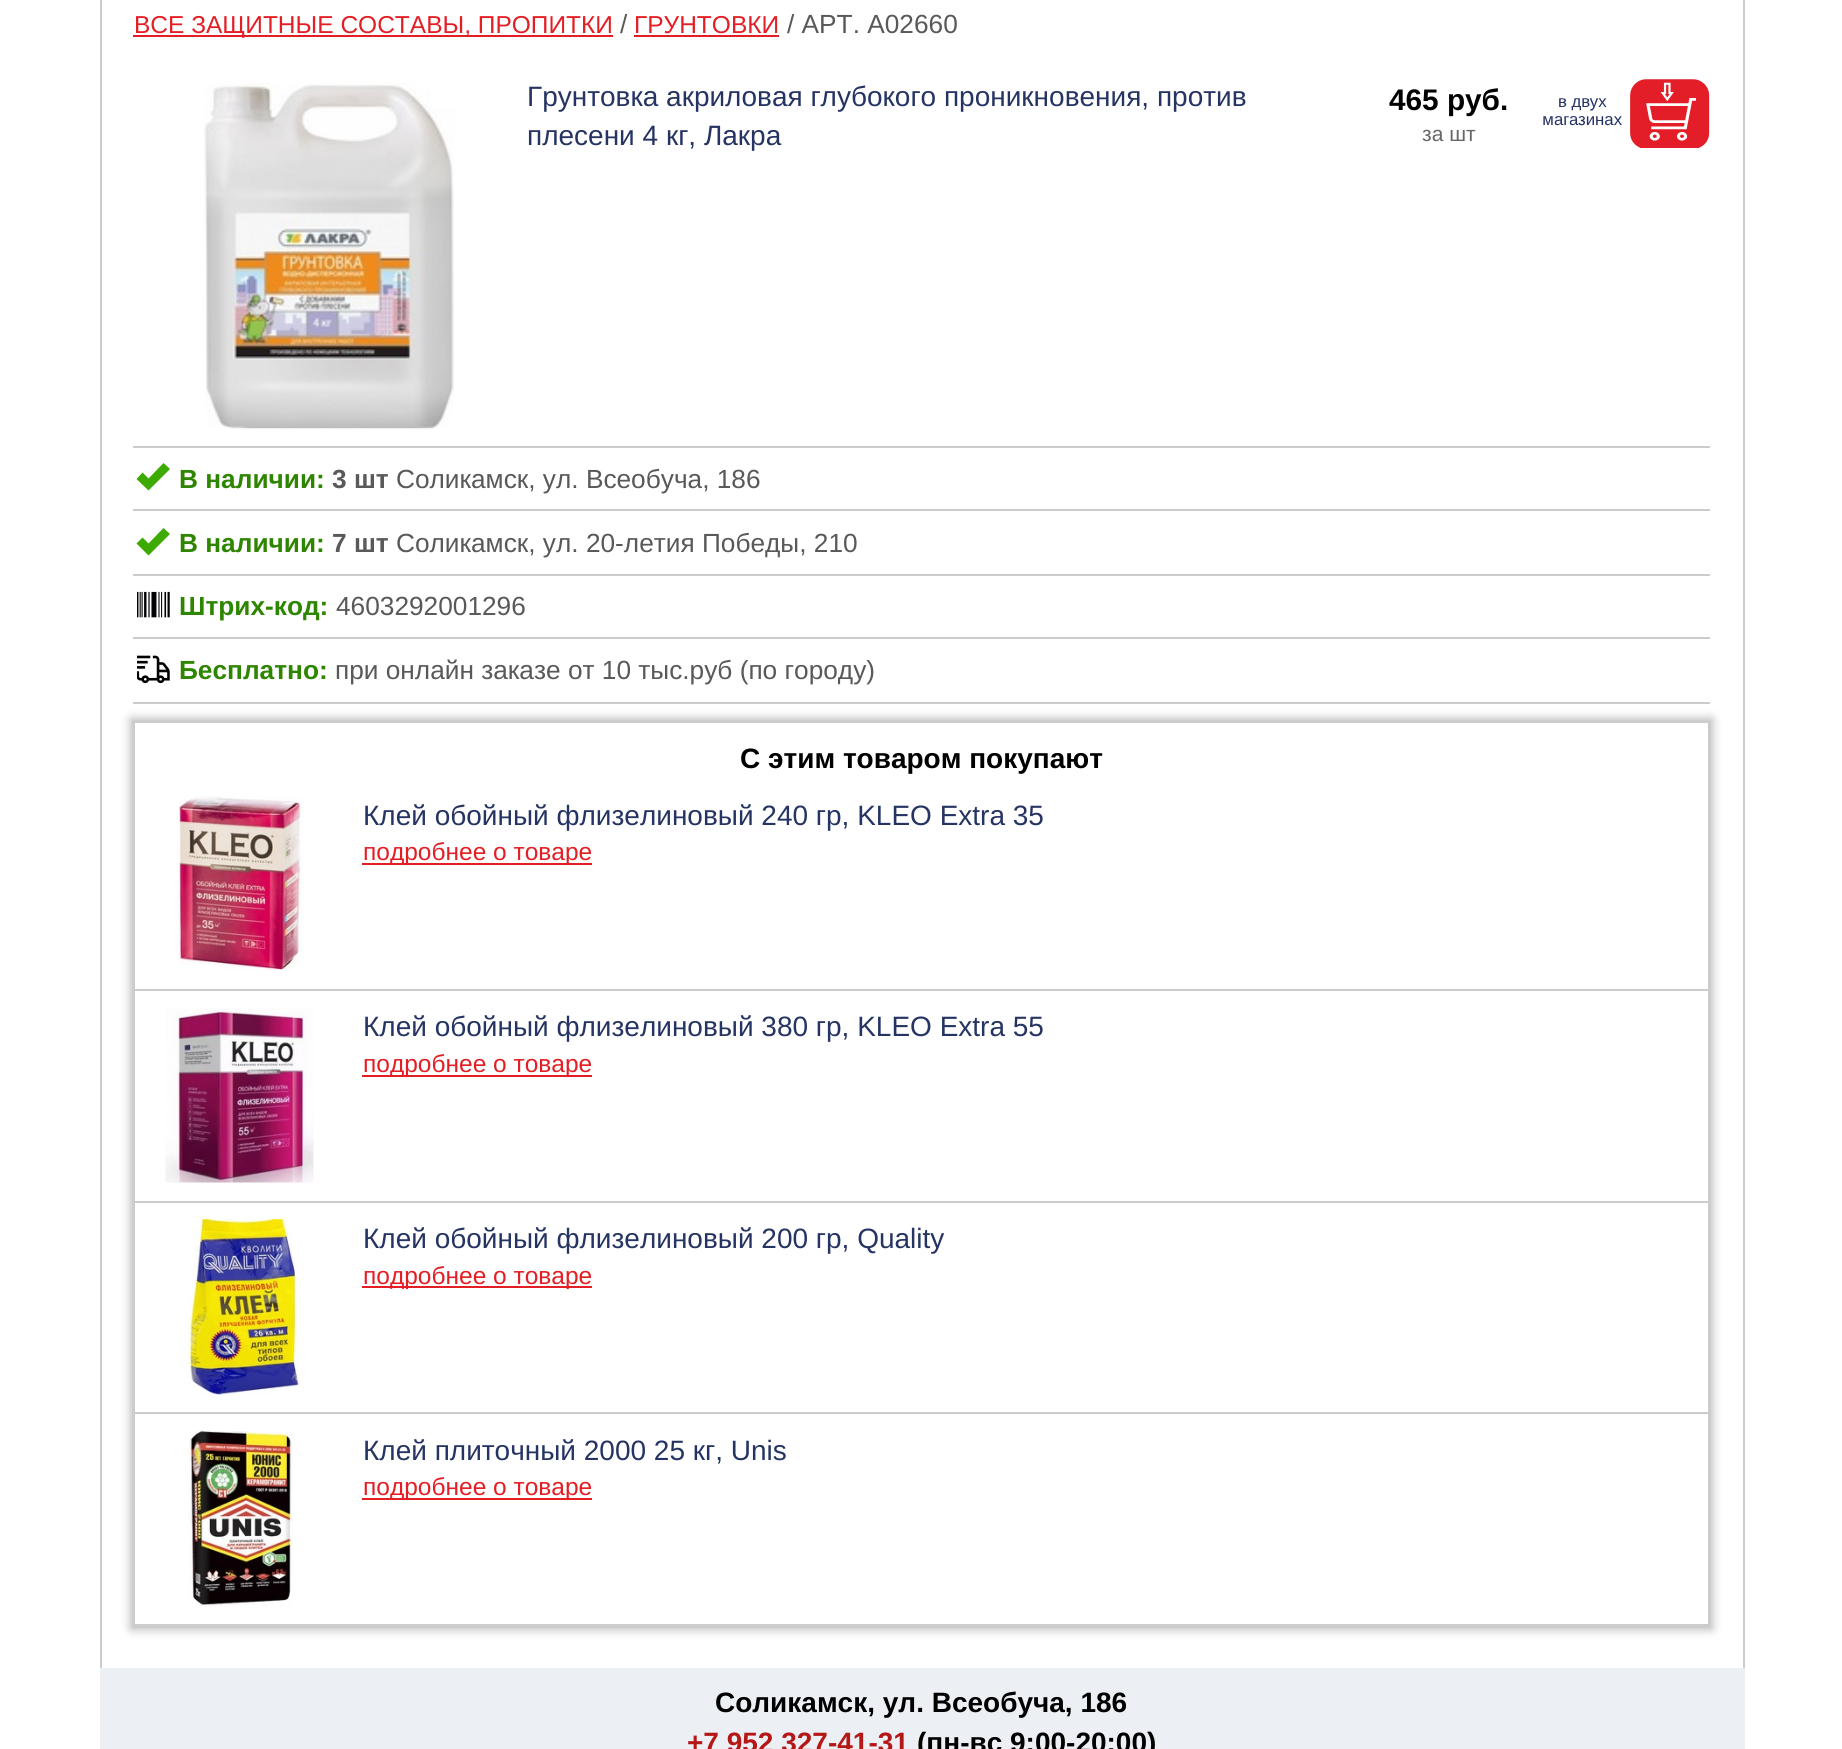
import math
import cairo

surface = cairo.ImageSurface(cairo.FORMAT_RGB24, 1842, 1749)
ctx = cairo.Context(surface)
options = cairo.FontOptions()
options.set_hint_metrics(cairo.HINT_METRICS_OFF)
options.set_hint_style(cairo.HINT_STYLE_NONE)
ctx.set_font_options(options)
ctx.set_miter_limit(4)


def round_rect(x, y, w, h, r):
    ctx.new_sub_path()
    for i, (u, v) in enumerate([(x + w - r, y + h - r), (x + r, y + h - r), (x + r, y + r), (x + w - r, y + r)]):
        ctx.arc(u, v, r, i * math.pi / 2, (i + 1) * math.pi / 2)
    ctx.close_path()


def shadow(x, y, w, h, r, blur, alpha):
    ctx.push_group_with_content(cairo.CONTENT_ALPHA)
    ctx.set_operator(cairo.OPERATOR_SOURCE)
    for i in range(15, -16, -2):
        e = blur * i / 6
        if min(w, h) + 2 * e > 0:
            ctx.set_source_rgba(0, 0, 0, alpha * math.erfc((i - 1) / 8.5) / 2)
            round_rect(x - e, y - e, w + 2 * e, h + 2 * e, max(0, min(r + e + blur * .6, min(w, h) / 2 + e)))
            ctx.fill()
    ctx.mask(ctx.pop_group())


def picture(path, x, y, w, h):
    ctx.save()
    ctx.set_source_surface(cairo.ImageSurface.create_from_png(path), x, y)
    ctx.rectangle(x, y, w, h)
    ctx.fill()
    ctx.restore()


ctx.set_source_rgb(1, 1, 1)
ctx.paint()
ctx.set_source_rgb(0.8, 0.8, 0.8)
ctx.rectangle(1743, 0, 2, 1668)
ctx.fill()
ctx.rectangle(100, 0, 2, 1668)
ctx.fill()
ctx.set_source_rgb(0.89, 0.118, 0.141)
ctx.rectangle(133, 35, 480, 2)
ctx.fill()
ctx.select_font_face("Liberation Sans")
ctx.set_font_size(24.5)
ctx.move_to(134, 33)
ctx.show_text("ВСЕ ЗАЩИТНЫЕ СОСТАВЫ, ПРОПИТКИ")
ctx.set_font_size(26.25)
ctx.set_source_rgb(0.349, 0.349, 0.349)
ctx.move_to(620, 33)
ctx.show_text("/")
ctx.set_font_size(24.5)
ctx.set_source_rgb(0.89, 0.118, 0.141)
ctx.move_to(634, 33)
ctx.show_text("ГРУНТОВКИ")
ctx.rectangle(634, 35, 145, 2)
ctx.fill()
ctx.set_font_size(26.25)
ctx.set_source_rgb(0.349, 0.349, 0.349)
ctx.move_to(787, 33)
ctx.show_text("/ АРТ. A02660")
ctx.set_source_rgb(0.8, 0.8, 0.8)
ctx.rectangle(133, 446, 1577, 2)
ctx.fill()
picture("img1.png", 204, 82, 250, 347)
ctx.set_font_size(28)
ctx.set_source_rgb(0.149, 0.204, 0.388)
ctx.move_to(527, 106)
ctx.show_text("Грунтовка акриловая глубокого проникновения, против")
ctx.move_to(527, 145)
ctx.show_text("плесени 4 кг, Лакра")
ctx.select_font_face("Liberation Sans", cairo.FONT_SLANT_NORMAL, cairo.FONT_WEIGHT_BOLD)
ctx.set_font_size(29.75)
ctx.set_source_rgb(0, 0, 0)
ctx.move_to(1389, 110)
ctx.show_text("465 руб.")
picture("img2.png", 1543, 98, 79, 28)
picture("img3.png", 1630, 79, 80, 69)
ctx.select_font_face("Liberation Sans")
ctx.set_font_size(21)
ctx.set_source_rgb(0.4, 0.4, 0.4)
ctx.move_to(1422, 141)
ctx.show_text("за шт")
ctx.set_source_rgb(0.8, 0.8, 0.8)
ctx.rectangle(133, 509, 1577, 2)
ctx.fill()
ctx.set_source_rgb(0.235, 0.667, 0)
ctx.new_path()
ctx.move_to(163.5, 463)
ctx.line_to(148.5, 478.5)
ctx.line_to(142.5, 472.5)
ctx.line_to(136.5, 479)
ctx.line_to(148.5, 490.5)
ctx.line_to(170, 469)
ctx.close_path()
ctx.fill()
ctx.select_font_face("Liberation Sans", cairo.FONT_SLANT_NORMAL, cairo.FONT_WEIGHT_BOLD)
ctx.set_font_size(26.25)
ctx.set_source_rgb(0.18, 0.522, 0)
ctx.move_to(179, 488)
ctx.show_text("В наличии:")
ctx.set_source_rgb(0.349, 0.349, 0.349)
ctx.move_to(332, 488)
ctx.show_text("3 шт")
ctx.select_font_face("Liberation Sans")
ctx.move_to(396, 488)
ctx.show_text("Соликамск, ул. Всеобуча, 186")
ctx.set_source_rgb(0.8, 0.8, 0.8)
ctx.rectangle(133, 574, 1577, 2)
ctx.fill()
ctx.set_source_rgb(0.235, 0.667, 0)
ctx.new_path()
ctx.move_to(163.5, 528)
ctx.line_to(148.5, 543.5)
ctx.line_to(142.5, 537.5)
ctx.line_to(136.5, 543.5)
ctx.line_to(148.5, 555.5)
ctx.line_to(170, 534)
ctx.close_path()
ctx.fill()
ctx.select_font_face("Liberation Sans", cairo.FONT_SLANT_NORMAL, cairo.FONT_WEIGHT_BOLD)
ctx.set_source_rgb(0.18, 0.522, 0)
ctx.move_to(179, 552)
ctx.show_text("В наличии:")
ctx.set_source_rgb(0.349, 0.349, 0.349)
ctx.move_to(332, 552)
ctx.show_text("7 шт")
ctx.select_font_face("Liberation Sans")
ctx.move_to(396, 552)
ctx.show_text("Соликамск, ул. 20-летия Победы, 210")
ctx.set_source_rgb(0.8, 0.8, 0.8)
ctx.rectangle(133, 637, 1577, 2)
ctx.fill()
picture("img4.png", 137, 591, 33, 27)
ctx.select_font_face("Liberation Sans", cairo.FONT_SLANT_NORMAL, cairo.FONT_WEIGHT_BOLD)
ctx.set_source_rgb(0.18, 0.522, 0)
ctx.move_to(179, 615)
ctx.show_text("Штрих-код:")
ctx.select_font_face("Liberation Sans")
ctx.set_source_rgb(0.349, 0.349, 0.349)
ctx.move_to(336, 615)
ctx.show_text("4603292001296")
ctx.set_source_rgb(0.8, 0.8, 0.8)
ctx.rectangle(133, 702, 1577, 2)
ctx.fill()
picture("img5.png", 137, 655, 33, 29)
ctx.select_font_face("Liberation Sans", cairo.FONT_SLANT_NORMAL, cairo.FONT_WEIGHT_BOLD)
ctx.set_source_rgb(0.18, 0.522, 0)
ctx.move_to(179, 679)
ctx.show_text("Бесплатно:")
ctx.select_font_face("Liberation Sans")
ctx.set_source_rgb(0.349, 0.349, 0.349)
ctx.move_to(335, 679)
ctx.show_text("при онлайн заказе от 10 тыс.руб (по городу)")
ctx.save()
ctx.set_fill_rule(cairo.FILL_RULE_EVEN_ODD)
ctx.new_path()
ctx.move_to(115, 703)
ctx.line_to(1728, 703)
ctx.line_to(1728, 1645)
ctx.line_to(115, 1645)
ctx.close_path()
ctx.move_to(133, 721)
ctx.line_to(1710, 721)
ctx.line_to(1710, 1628)
ctx.line_to(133, 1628)
ctx.close_path()
ctx.clip()
ctx.set_source_rgb(0, 0, 0)
shadow(131, 719, 1581, 910, 0, 5, 0.3)
ctx.restore()
ctx.rectangle(134, 722, 1575, 905)
ctx.set_source_rgb(0.8, 0.8, 0.8)
ctx.stroke()
ctx.select_font_face("Liberation Sans", cairo.FONT_SLANT_NORMAL, cairo.FONT_WEIGHT_BOLD)
ctx.set_font_size(28)
ctx.set_source_rgb(0, 0, 0)
ctx.move_to(740, 768)
ctx.show_text("С этим товаром покупают")
ctx.set_source_rgb(0.8, 0.8, 0.8)
ctx.rectangle(135, 989, 1573, 2)
ctx.fill()
picture("img6.png", 177, 796, 127, 175)
ctx.select_font_face("Liberation Sans")
ctx.set_source_rgb(0.149, 0.204, 0.388)
ctx.move_to(363, 825)
ctx.show_text("Клей обойный флизелиновый 240 гр, KLEO Extra 35")
ctx.set_source_rgb(0.89, 0.118, 0.141)
ctx.rectangle(362, 863, 230, 2)
ctx.fill()
ctx.set_font_size(24.5)
ctx.move_to(363, 860)
ctx.show_text("подробнее о товаре")
ctx.set_source_rgb(0.8, 0.8, 0.8)
ctx.rectangle(135, 1201, 1573, 2)
ctx.fill()
picture("img7.png", 165, 1007, 149, 176)
ctx.set_font_size(28)
ctx.set_source_rgb(0.149, 0.204, 0.388)
ctx.move_to(363, 1036)
ctx.show_text("Клей обойный флизелиновый 380 гр, KLEO Extra 55")
ctx.set_source_rgb(0.89, 0.118, 0.141)
ctx.rectangle(362, 1075, 230, 2)
ctx.fill()
ctx.set_font_size(24.5)
ctx.move_to(363, 1072)
ctx.show_text("подробнее о товаре")
ctx.set_source_rgb(0.8, 0.8, 0.8)
ctx.rectangle(135, 1412, 1573, 2)
ctx.fill()
picture("img8.png", 180, 1219, 126, 176)
ctx.set_font_size(28)
ctx.set_source_rgb(0.149, 0.204, 0.388)
ctx.move_to(363, 1248)
ctx.show_text("Клей обойный флизелиновый 200 гр, Quality")
ctx.set_source_rgb(0.89, 0.118, 0.141)
ctx.rectangle(362, 1286, 230, 2)
ctx.fill()
ctx.set_font_size(24.5)
ctx.move_to(363, 1284)
ctx.show_text("подробнее о товаре")
ctx.set_source_rgb(0.8, 0.8, 0.8)
ctx.rectangle(135, 1624, 1573, 2)
ctx.fill()
picture("img9.png", 188, 1431, 105, 175)
ctx.set_font_size(28)
ctx.set_source_rgb(0.149, 0.204, 0.388)
ctx.move_to(363, 1460)
ctx.show_text("Клей плиточный 2000 25 кг, Unis")
ctx.set_source_rgb(0.89, 0.118, 0.141)
ctx.rectangle(362, 1498, 230, 2)
ctx.fill()
ctx.set_font_size(24.5)
ctx.move_to(363, 1495)
ctx.show_text("подробнее о товаре")
ctx.set_source_rgb(0.922, 0.941, 0.957)
ctx.rectangle(100, 1668, 1645, 81)
ctx.fill()
ctx.select_font_face("Liberation Sans", cairo.FONT_SLANT_NORMAL, cairo.FONT_WEIGHT_BOLD)
ctx.set_font_size(28)
ctx.set_source_rgb(0, 0, 0)
ctx.move_to(715, 1712)
ctx.show_text("Соликамск, ул. Всеобуча, 186")
ctx.set_source_rgb(0.71, 0.09, 0.09)
ctx.move_to(687, 1752)
ctx.show_text("+7 952 327-41-31")
ctx.set_source_rgb(0, 0, 0)
ctx.move_to(917, 1752)
ctx.show_text("(пн-вс 9:00-20:00)")
surface.write_to_png("page.png")
